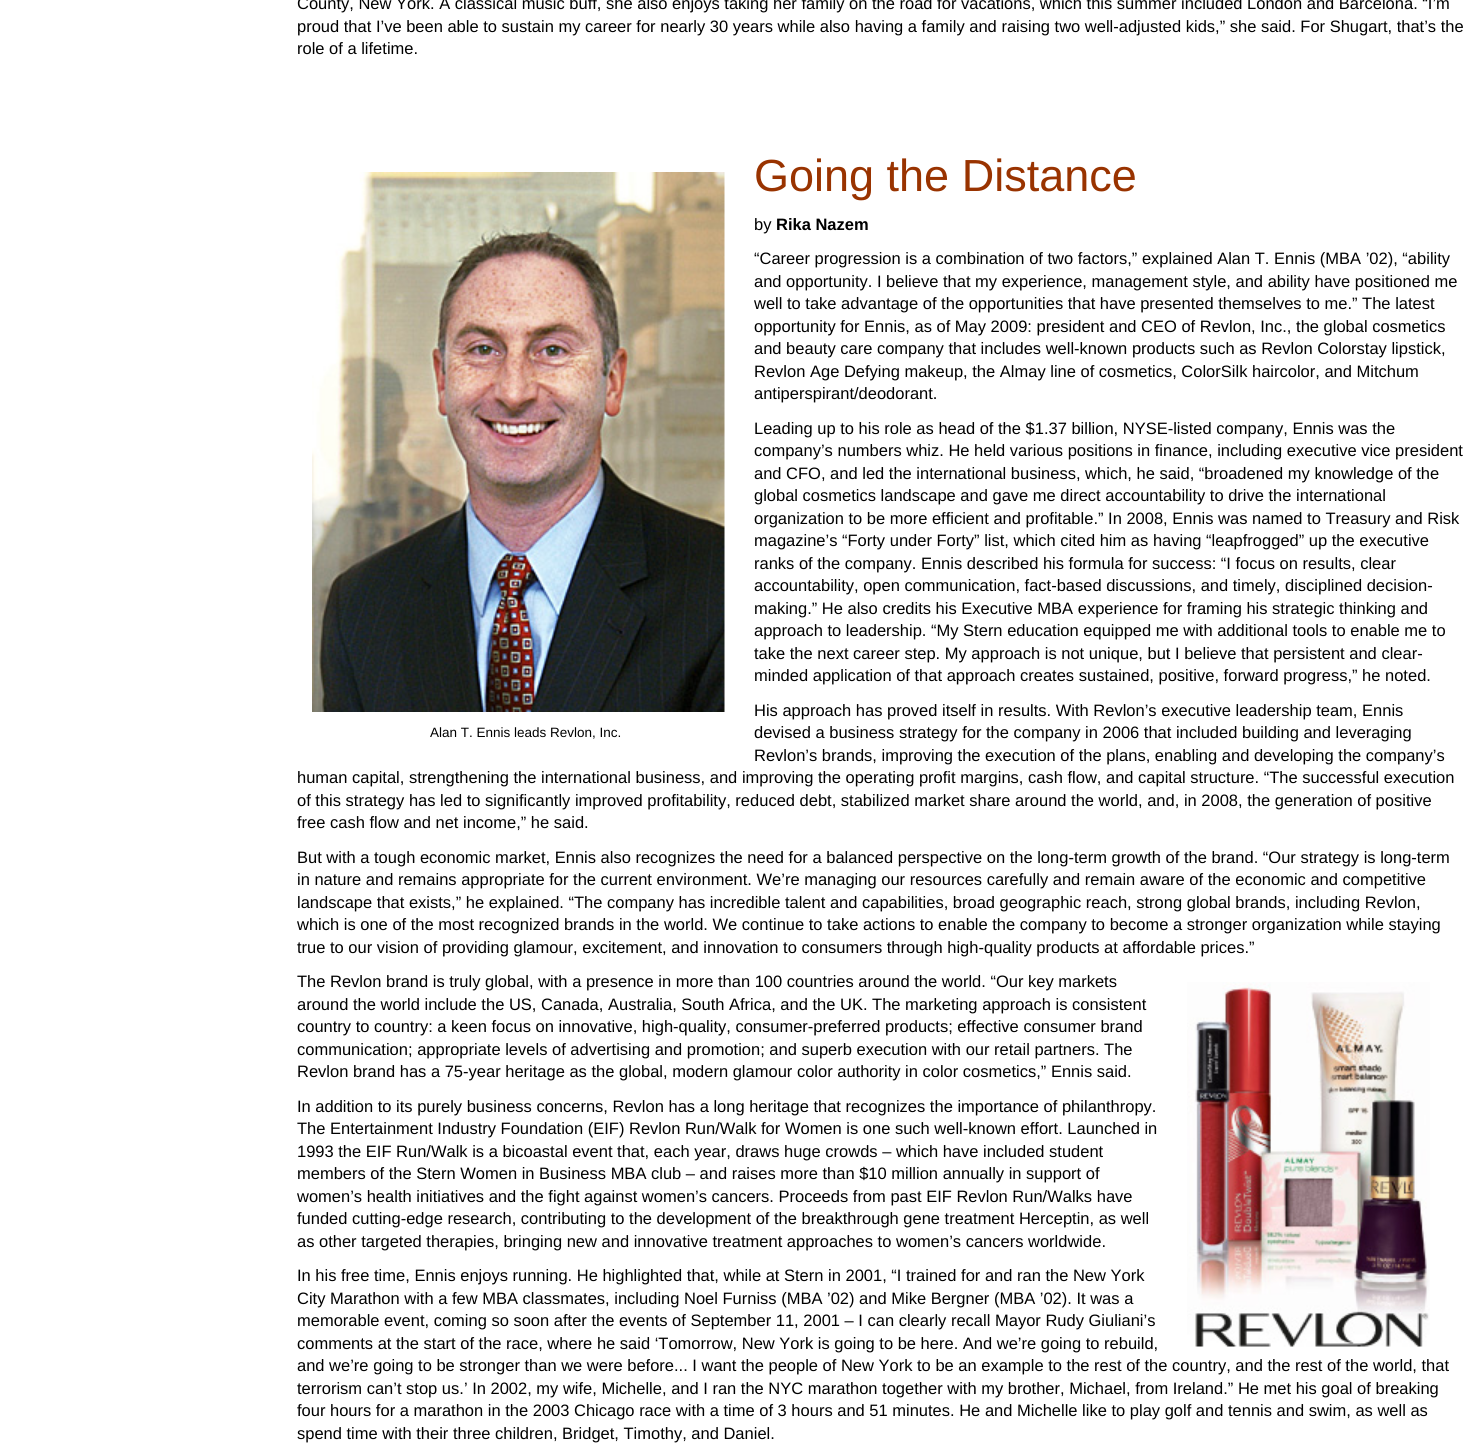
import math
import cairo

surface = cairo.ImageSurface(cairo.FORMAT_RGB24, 1476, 1452)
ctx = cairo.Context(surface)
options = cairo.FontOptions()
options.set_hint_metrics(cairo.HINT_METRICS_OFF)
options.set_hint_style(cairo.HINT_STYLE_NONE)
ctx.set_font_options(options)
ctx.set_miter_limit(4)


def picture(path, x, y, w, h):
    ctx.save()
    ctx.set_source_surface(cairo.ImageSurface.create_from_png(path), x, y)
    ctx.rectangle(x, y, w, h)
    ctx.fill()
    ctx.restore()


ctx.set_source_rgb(1, 1, 1)
ctx.paint()
ctx.select_font_face("Liberation Sans")
ctx.set_font_size(16.5)
ctx.set_source_rgb(0, 0, 0)
ctx.move_to(297, 9)
ctx.show_text("County, New York. A classical music buff, she also enjoys taking her family on the road for vacations, which this summer included London and Barcelona. “I’m")
ctx.move_to(297, 32)
ctx.show_text("proud that I’ve been able to sustain my career for nearly 30 years while also having a family and raising two well-adjusted kids,” she said. For Shugart, that’s the")
ctx.move_to(297, 54)
ctx.show_text("role of a lifetime.")
ctx.set_font_size(45)
ctx.set_source_rgb(0.6, 0.2, 0)
ctx.move_to(754, 191)
ctx.show_text("Going the Distance")
ctx.set_font_size(16.5)
ctx.set_source_rgb(0, 0, 0)
ctx.move_to(754, 230)
ctx.show_text("by")
ctx.select_font_face("Liberation Sans", cairo.FONT_SLANT_NORMAL, cairo.FONT_WEIGHT_BOLD)
ctx.move_to(776, 230)
ctx.show_text("Rika Nazem")
ctx.select_font_face("Liberation Sans")
ctx.move_to(754, 264)
ctx.show_text("“Career progression is a combination of two factors,” explained Alan T. Ennis (MBA ’02), “ability")
ctx.move_to(754, 287)
ctx.show_text("and opportunity. I believe that my experience, management style, and ability have positioned me")
ctx.move_to(754, 309)
ctx.show_text("well to take advantage of the opportunities that have presented themselves to me.” The latest")
ctx.move_to(754, 332)
ctx.show_text("opportunity for Ennis, as of May 2009: president and CEO of Revlon, Inc., the global cosmetics")
ctx.move_to(754, 354)
ctx.show_text("and beauty care company that includes well-known products such as Revlon Colorstay lipstick,")
ctx.move_to(754, 377)
ctx.show_text("Revlon Age Defying makeup, the Almay line of cosmetics, ColorSilk haircolor, and Mitchum")
ctx.move_to(754, 399)
ctx.show_text("antiperspirant/deodorant.")
ctx.move_to(754, 434)
ctx.show_text("Leading up to his role as head of the $1.37 billion, NYSE-listed company, Ennis was the")
ctx.move_to(754, 456)
ctx.show_text("company’s numbers whiz. He held various positions in finance, including executive vice president")
ctx.move_to(754, 479)
ctx.show_text("and CFO, and led the international business, which, he said, “broadened my knowledge of the")
ctx.move_to(754, 501)
ctx.show_text("global cosmetics landscape and gave me direct accountability to drive the international")
ctx.move_to(754, 524)
ctx.show_text("organization to be more efficient and profitable.” In 2008, Ennis was named to Treasury and Risk")
ctx.move_to(754, 546)
ctx.show_text("magazine’s “Forty under Forty” list, which cited him as having “leapfrogged” up the executive")
ctx.move_to(754, 569)
ctx.show_text("ranks of the company. Ennis described his formula for success: “I focus on results, clear")
ctx.move_to(754, 591)
ctx.show_text("accountability, open communication, fact-based discussions, and timely, disciplined decision-")
ctx.move_to(754, 614)
ctx.show_text("making.” He also credits his Executive MBA experience for framing his strategic thinking and")
ctx.move_to(754, 636)
ctx.show_text("approach to leadership. “My Stern education equipped me with additional tools to enable me to")
ctx.move_to(754, 659)
ctx.show_text("take the next career step. My approach is not unique, but I believe that persistent and clear-")
ctx.move_to(754, 681)
ctx.show_text("minded application of that approach creates sustained, positive, forward progress,” he noted.")
ctx.move_to(754, 716)
ctx.show_text("His approach has proved itself in results. With Revlon’s executive leadership team, Ennis")
ctx.move_to(754, 738)
ctx.show_text("devised a business strategy for the company in 2006 that included building and leveraging")
ctx.move_to(754, 761)
ctx.show_text("Revlon’s brands, improving the execution of the plans, enabling and developing the company’s")
ctx.move_to(297, 783)
ctx.show_text("human capital, strengthening the international business, and improving the operating profit margins, cash flow, and capital structure. “The successful execution")
ctx.move_to(297, 806)
ctx.show_text("of this strategy has led to significantly improved profitability, reduced debt, stabilized market share around the world, and, in 2008, the generation of positive")
ctx.move_to(297, 828)
ctx.show_text("free cash flow and net income,” he said.")
picture("img1.png", 312, 172, 413, 540)
ctx.set_font_size(13.5)
ctx.move_to(430, 737)
ctx.show_text("Alan T. Ennis leads Revlon, Inc.")
ctx.set_font_size(16.5)
ctx.move_to(297, 863)
ctx.show_text("But with a tough economic market, Ennis also recognizes the need for a balanced perspective on the long-term growth of the brand. “Our strategy is long-term")
ctx.move_to(297, 885)
ctx.show_text("in nature and remains appropriate for the current environment. We’re managing our resources carefully and remain aware of the economic and competitive")
ctx.move_to(297, 908)
ctx.show_text("landscape that exists,” he explained. “The company has incredible talent and capabilities, broad geographic reach, strong global brands, including Revlon,")
ctx.move_to(297, 930)
ctx.show_text("which is one of the most recognized brands in the world. We continue to take actions to enable the company to become a stronger organization while staying")
ctx.move_to(297, 953)
ctx.show_text("true to our vision of providing glamour, excitement, and innovation to consumers through high-quality products at affordable prices.”")
ctx.move_to(297, 987)
ctx.show_text("The Revlon brand is truly global, with a presence in more than 100 countries around the world. “Our key markets")
picture("img2.png", 1187, 982, 243, 365)
ctx.move_to(297, 1010)
ctx.show_text("around the world include the US, Canada, Australia, South Africa, and the UK. The marketing approach is consistent")
ctx.move_to(297, 1032)
ctx.show_text("country to country: a keen focus on innovative, high-quality, consumer-preferred products; effective consumer brand")
ctx.move_to(297, 1055)
ctx.show_text("communication; appropriate levels of advertising and promotion; and superb execution with our retail partners. The")
ctx.move_to(297, 1077)
ctx.show_text("Revlon brand has a 75-year heritage as the global, modern glamour color authority in color cosmetics,” Ennis said.")
ctx.move_to(297, 1112)
ctx.show_text("In addition to its purely business concerns, Revlon has a long heritage that recognizes the importance of philanthropy.")
ctx.move_to(297, 1134)
ctx.show_text("The Entertainment Industry Foundation (EIF) Revlon Run/Walk for Women is one such well-known effort. Launched in")
ctx.move_to(297, 1157)
ctx.show_text("1993 the EIF Run/Walk is a bicoastal event that, each year, draws huge crowds – which have included student")
ctx.move_to(297, 1179)
ctx.show_text("members of the Stern Women in Business MBA club – and raises more than $10 million annually in support of")
ctx.move_to(297, 1202)
ctx.show_text("women’s health initiatives and the fight against women’s cancers. Proceeds from past EIF Revlon Run/Walks have")
ctx.move_to(297, 1224)
ctx.show_text("funded cutting-edge research, contributing to the development of the breakthrough gene treatment Herceptin, as well")
ctx.move_to(297, 1247)
ctx.show_text("as other targeted therapies, bringing new and innovative treatment approaches to women’s cancers worldwide.")
ctx.move_to(297, 1281)
ctx.show_text("In his free time, Ennis enjoys running. He highlighted that, while at Stern in 2001, “I trained for and ran the New York")
ctx.move_to(297, 1304)
ctx.show_text("City Marathon with a few MBA classmates, including Noel Furniss (MBA ’02) and Mike Bergner (MBA ’02). It was a")
ctx.move_to(297, 1326)
ctx.show_text("memorable event, coming so soon after the events of September 11, 2001 – I can clearly recall Mayor Rudy Giuliani’s")
ctx.move_to(297, 1349)
ctx.show_text("comments at the start of the race, where he said ‘Tomorrow, New York is going to be here. And we’re going to rebuild,")
ctx.move_to(297, 1371)
ctx.show_text("and we’re going to be stronger than we were before... I want the people of New York to be an example to the rest of the country, and the rest of the world, that")
ctx.move_to(297, 1394)
ctx.show_text("terrorism can’t stop us.’ In 2002, my wife, Michelle, and I ran the NYC marathon together with my brother, Michael, from Ireland.” He met his goal of breaking")
ctx.move_to(297, 1416)
ctx.show_text("four hours for a marathon in the 2003 Chicago race with a time of 3 hours and 51 minutes. He and Michelle like to play golf and tennis and swim, as well as")
ctx.move_to(297, 1439)
ctx.show_text("spend time with their three children, Bridget, Timothy, and Daniel.")
surface.write_to_png("page.png")
